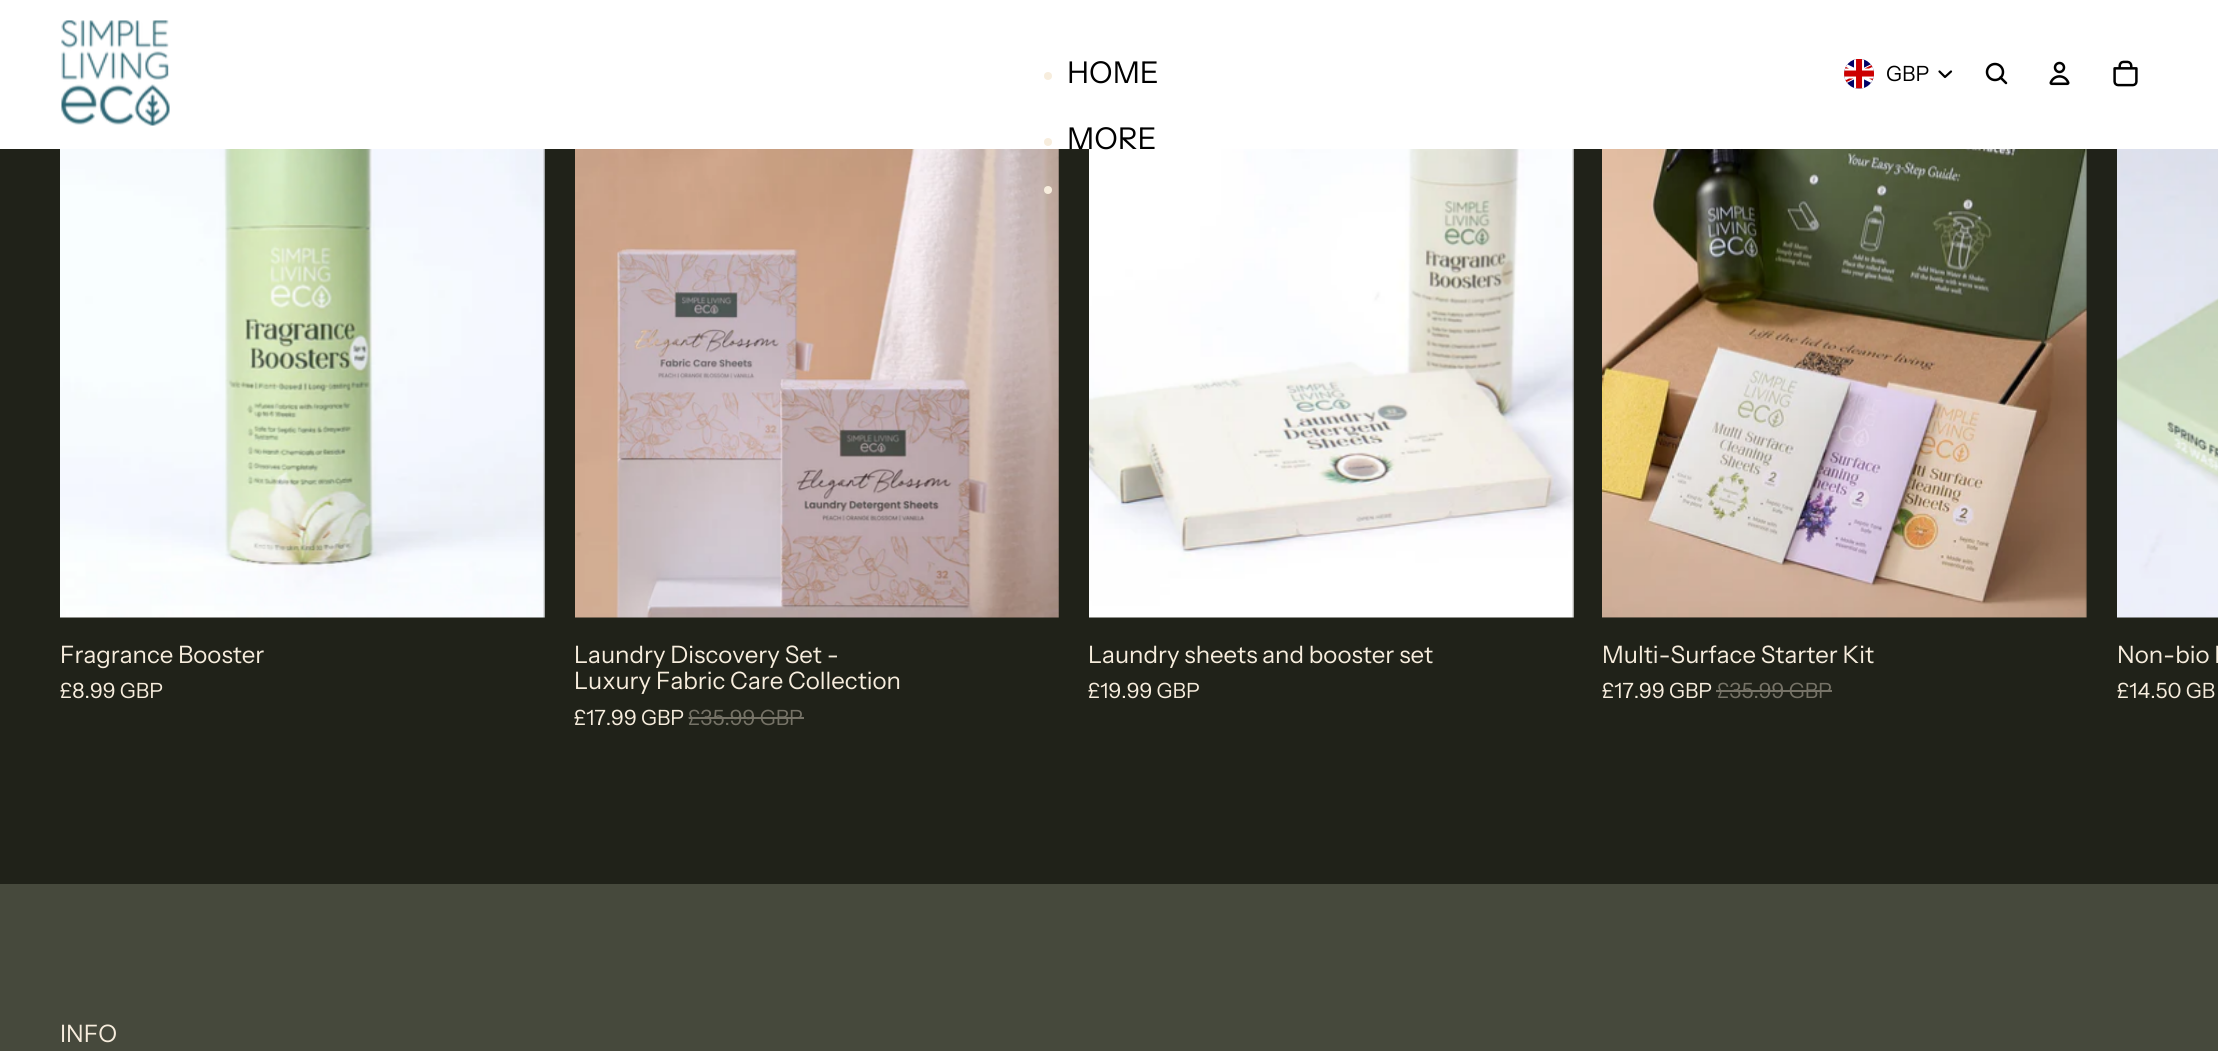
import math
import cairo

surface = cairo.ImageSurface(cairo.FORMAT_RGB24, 2218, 1051)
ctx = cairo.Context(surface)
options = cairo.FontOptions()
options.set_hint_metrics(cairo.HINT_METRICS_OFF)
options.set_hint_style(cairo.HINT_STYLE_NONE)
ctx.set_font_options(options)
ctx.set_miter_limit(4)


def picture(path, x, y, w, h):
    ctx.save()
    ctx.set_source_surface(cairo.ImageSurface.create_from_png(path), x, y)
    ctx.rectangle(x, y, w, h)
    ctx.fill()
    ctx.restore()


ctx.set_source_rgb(0.125, 0.133, 0.098)
ctx.paint()
ctx.set_source_rgb(1, 1, 1)
ctx.rectangle(0, 0, 2218, 149)
ctx.fill()
picture("img1.png", 61, 20, 109, 106)
ctx.set_source_rgb(0.965, 0.929, 0.867)
ctx.arc(1048, 76, 4, 0, 2 * math.pi)
ctx.fill()
ctx.select_font_face("Instrument Sans")
ctx.set_font_size(30)
ctx.set_source_rgb(0, 0, 0)
ctx.move_to(1067, 83)
ctx.show_text("HOME")
ctx.set_source_rgb(0.965, 0.929, 0.867)
ctx.new_path()
ctx.arc(1048, 142, 4, 0, 2 * math.pi)
ctx.fill()
picture("img7.png", 1089, 149, 485, 469)
ctx.set_source_rgb(0, 0, 0)
ctx.move_to(1067, 149)
ctx.show_text("MORE")
picture("img6.png", 575, 149, 484, 469)
ctx.set_source_rgb(0.965, 0.929, 0.867)
ctx.arc(1048, 190, 4, 0, 2 * math.pi)
ctx.fill()
picture("img2.png", 1844, 59, 30, 30)
ctx.set_font_size(21)
ctx.set_source_rgb(0, 0, 0)
ctx.move_to(1886, 81)
ctx.show_text("GBP")
ctx.new_path()
ctx.move_to(1951, 71.5)
ctx.line_to(1945, 77)
ctx.line_to(1939.5, 71.5)
ctx.set_line_width(2.2)
ctx.set_line_cap(cairo.LINE_CAP_ROUND)
ctx.set_line_join(cairo.LINE_JOIN_ROUND)
ctx.stroke()
ctx.arc(1995, 72, 8, 0, 2 * math.pi)
ctx.set_line_width(2.5)
ctx.set_line_cap(cairo.LINE_CAP_BUTT)
ctx.set_line_join(cairo.LINE_JOIN_MITER)
ctx.stroke()
ctx.new_path()
ctx.move_to(2000.5, 77.5)
ctx.line_to(2006, 83)
ctx.set_line_cap(cairo.LINE_CAP_ROUND)
ctx.set_line_join(cairo.LINE_JOIN_ROUND)
ctx.stroke()
picture("img3.png", 2049, 61, 21, 25)
picture("img4.png", 2113, 60, 25, 27)
picture("img5.png", 60, 149, 485, 469)
ctx.set_font_size(24)
ctx.set_source_rgb(0.965, 0.929, 0.867)
ctx.move_to(60, 663)
ctx.show_text("Fragrance Booster")
ctx.set_font_size(21)
ctx.move_to(60, 698)
ctx.show_text("£8.99 GBP")
ctx.set_font_size(24)
ctx.move_to(574, 663)
ctx.show_text("Laundry Discovery Set -")
ctx.move_to(574, 689)
ctx.show_text("Luxury Fabric Care Collection")
ctx.set_font_size(21)
ctx.move_to(574, 725)
ctx.show_text("£17.99 GBP")
ctx.set_source_rgb(0.463, 0.451, 0.404)
ctx.move_to(688, 725)
ctx.show_text("£35.99 GBP")
ctx.rectangle(689, 717, 115, 2)
ctx.fill()
ctx.set_font_size(24)
ctx.set_source_rgb(0.965, 0.929, 0.867)
ctx.move_to(1088, 663)
ctx.show_text("Laundry sheets and booster set")
ctx.set_font_size(21)
ctx.move_to(1088, 698)
ctx.show_text("£19.99 GBP")
picture("img8.png", 1602, 149, 485, 469)
ctx.set_font_size(24)
ctx.move_to(1602, 663)
ctx.show_text("Multi-Surface Starter Kit")
ctx.set_font_size(21)
ctx.move_to(1602, 698)
ctx.show_text("£17.99 GBP")
ctx.set_source_rgb(0.463, 0.451, 0.404)
ctx.move_to(1717, 698)
ctx.show_text("£35.99 GBP")
ctx.rectangle(1716, 690, 116, 2)
ctx.fill()
picture("img9.png", 2117, 149, 101, 469)
ctx.set_font_size(24)
ctx.set_source_rgb(0.965, 0.929, 0.867)
ctx.move_to(2117, 663)
ctx.show_text("Non-bio L")
ctx.set_font_size(21)
ctx.move_to(2117, 698)
ctx.show_text("£14.50 GB")
ctx.set_source_rgb(0.275, 0.286, 0.235)
ctx.rectangle(0, 884, 2218, 167)
ctx.fill()
ctx.set_font_size(24)
ctx.set_source_rgb(0.965, 0.929, 0.867)
ctx.move_to(60, 1042)
ctx.show_text("INFO")
surface.write_to_png("page.png")
